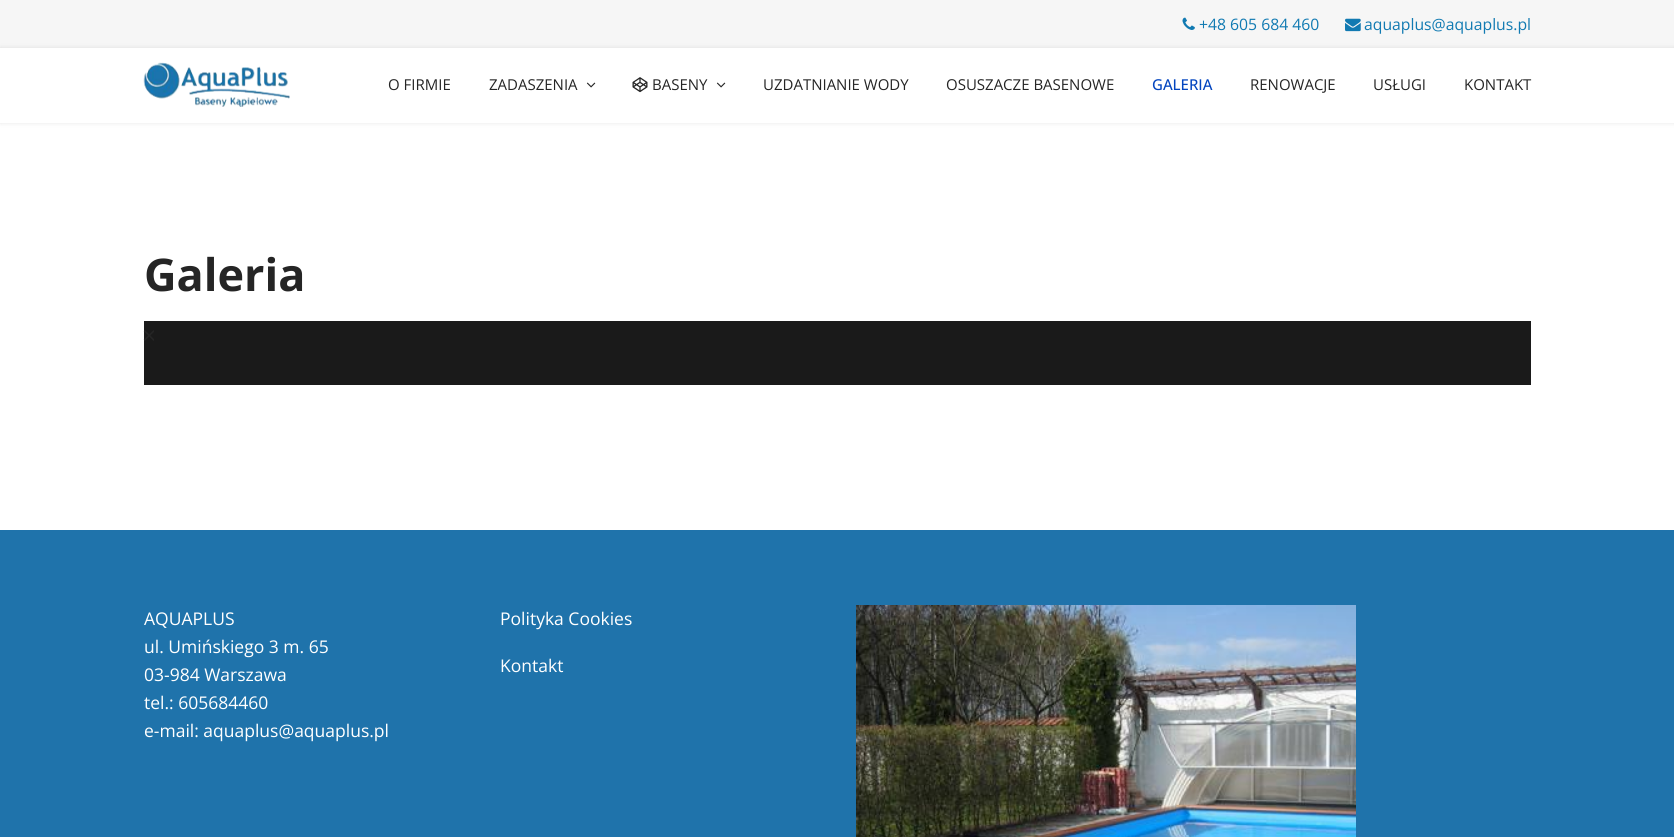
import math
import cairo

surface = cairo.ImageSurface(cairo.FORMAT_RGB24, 1674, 837)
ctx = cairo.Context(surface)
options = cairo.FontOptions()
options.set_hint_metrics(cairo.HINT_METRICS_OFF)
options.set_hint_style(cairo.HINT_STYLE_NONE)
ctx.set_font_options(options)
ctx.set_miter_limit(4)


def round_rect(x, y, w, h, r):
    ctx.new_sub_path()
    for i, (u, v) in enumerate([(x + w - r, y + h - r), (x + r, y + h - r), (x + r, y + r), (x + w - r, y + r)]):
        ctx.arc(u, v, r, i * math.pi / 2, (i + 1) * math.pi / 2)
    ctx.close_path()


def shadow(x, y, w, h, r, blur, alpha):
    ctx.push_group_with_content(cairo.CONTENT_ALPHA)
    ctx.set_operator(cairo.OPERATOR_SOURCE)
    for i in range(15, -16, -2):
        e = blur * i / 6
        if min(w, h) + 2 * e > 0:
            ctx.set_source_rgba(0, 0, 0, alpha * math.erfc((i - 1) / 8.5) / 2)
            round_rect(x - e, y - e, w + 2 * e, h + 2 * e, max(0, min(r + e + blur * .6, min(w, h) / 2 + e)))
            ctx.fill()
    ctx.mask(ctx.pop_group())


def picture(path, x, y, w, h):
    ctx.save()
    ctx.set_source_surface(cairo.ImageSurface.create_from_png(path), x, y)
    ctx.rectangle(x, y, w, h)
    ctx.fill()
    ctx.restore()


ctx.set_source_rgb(1, 1, 1)
ctx.paint()
ctx.set_source_rgb(0.961, 0.961, 0.961)
ctx.rectangle(0, 0, 1674, 48)
ctx.fill()
picture("img1.png", 1182, 17, 13, 13)
ctx.select_font_face("Open Sans")
ctx.set_font_size(15.75)
ctx.set_source_rgb(0.067, 0.478, 0.698)
ctx.move_to(1199, 30)
ctx.show_text("+48 605 684 460")
picture("img2.png", 1345, 18, 16, 14)
ctx.move_to(1364, 30)
ctx.show_text("aquaplus@aquaplus.pl")
ctx.set_source_rgb(0, 0, 0)
shadow(0, 48, 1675, 75, 0, 2.5, 0.1)
ctx.set_source_rgb(1, 1, 1)
ctx.rectangle(0, 48, 1674, 75)
ctx.fill()
picture("img3.png", 143, 62, 147, 45)
ctx.set_font_size(15)
ctx.set_source_rgb(0.145, 0.145, 0.145)
ctx.move_to(388, 90)
ctx.show_text("O FIRMIE")
ctx.move_to(489, 90)
ctx.show_text("ZADASZENIA")
picture("img4.png", 586, 82, 10, 6)
picture("img5.png", 632, 77, 16, 16)
ctx.move_to(652, 90)
ctx.show_text("BASENY")
picture("img4.png", 716, 82, 10, 6)
ctx.move_to(763, 90)
ctx.show_text("UZDATNIANIE WODY")
ctx.move_to(946, 90)
ctx.show_text("OSUSZACZE BASENOWE")
ctx.select_font_face("Open Sans Medium")
ctx.set_source_rgb(0.012, 0.271, 0.749)
ctx.move_to(1152, 90)
ctx.show_text("GALERIA")
ctx.select_font_face("Open Sans")
ctx.set_source_rgb(0.145, 0.145, 0.145)
ctx.move_to(1250, 90)
ctx.show_text("RENOWACJE")
ctx.move_to(1373, 90)
ctx.show_text("USŁUGI")
ctx.move_to(1464, 90)
ctx.show_text("KONTAKT")
ctx.select_font_face("Open Sans", cairo.FONT_SLANT_NORMAL, cairo.FONT_WEIGHT_BOLD)
ctx.set_font_size(45)
ctx.move_to(144, 291)
ctx.show_text("Galeria")
ctx.set_source_rgb(0.102, 0.102, 0.102)
ctx.rectangle(144, 321, 1387, 64)
ctx.fill()
picture("img6.png", 143, 330, 11, 11)
ctx.set_source_rgb(0.122, 0.451, 0.671)
ctx.rectangle(0, 530, 1674, 307)
ctx.fill()
ctx.select_font_face("Open Sans")
ctx.set_font_size(17.5)
ctx.set_source_rgb(1, 1, 1)
ctx.move_to(144, 625)
ctx.show_text("AQUAPLUS")
ctx.move_to(144, 653)
ctx.show_text("ul. Umińskiego 3 m. 65")
ctx.move_to(144, 681)
ctx.show_text("03-984 Warszawa")
ctx.move_to(144, 709)
ctx.show_text("tel.: 605684460")
ctx.move_to(144, 737)
ctx.show_text("e-mail: aquaplus@aquaplus.pl")
ctx.move_to(500, 625)
ctx.show_text("Polityka Cookies")
ctx.move_to(500, 672)
ctx.show_text("Kontakt")
picture("img7.png", 856, 605, 500, 232)
surface.write_to_png("page.png")
